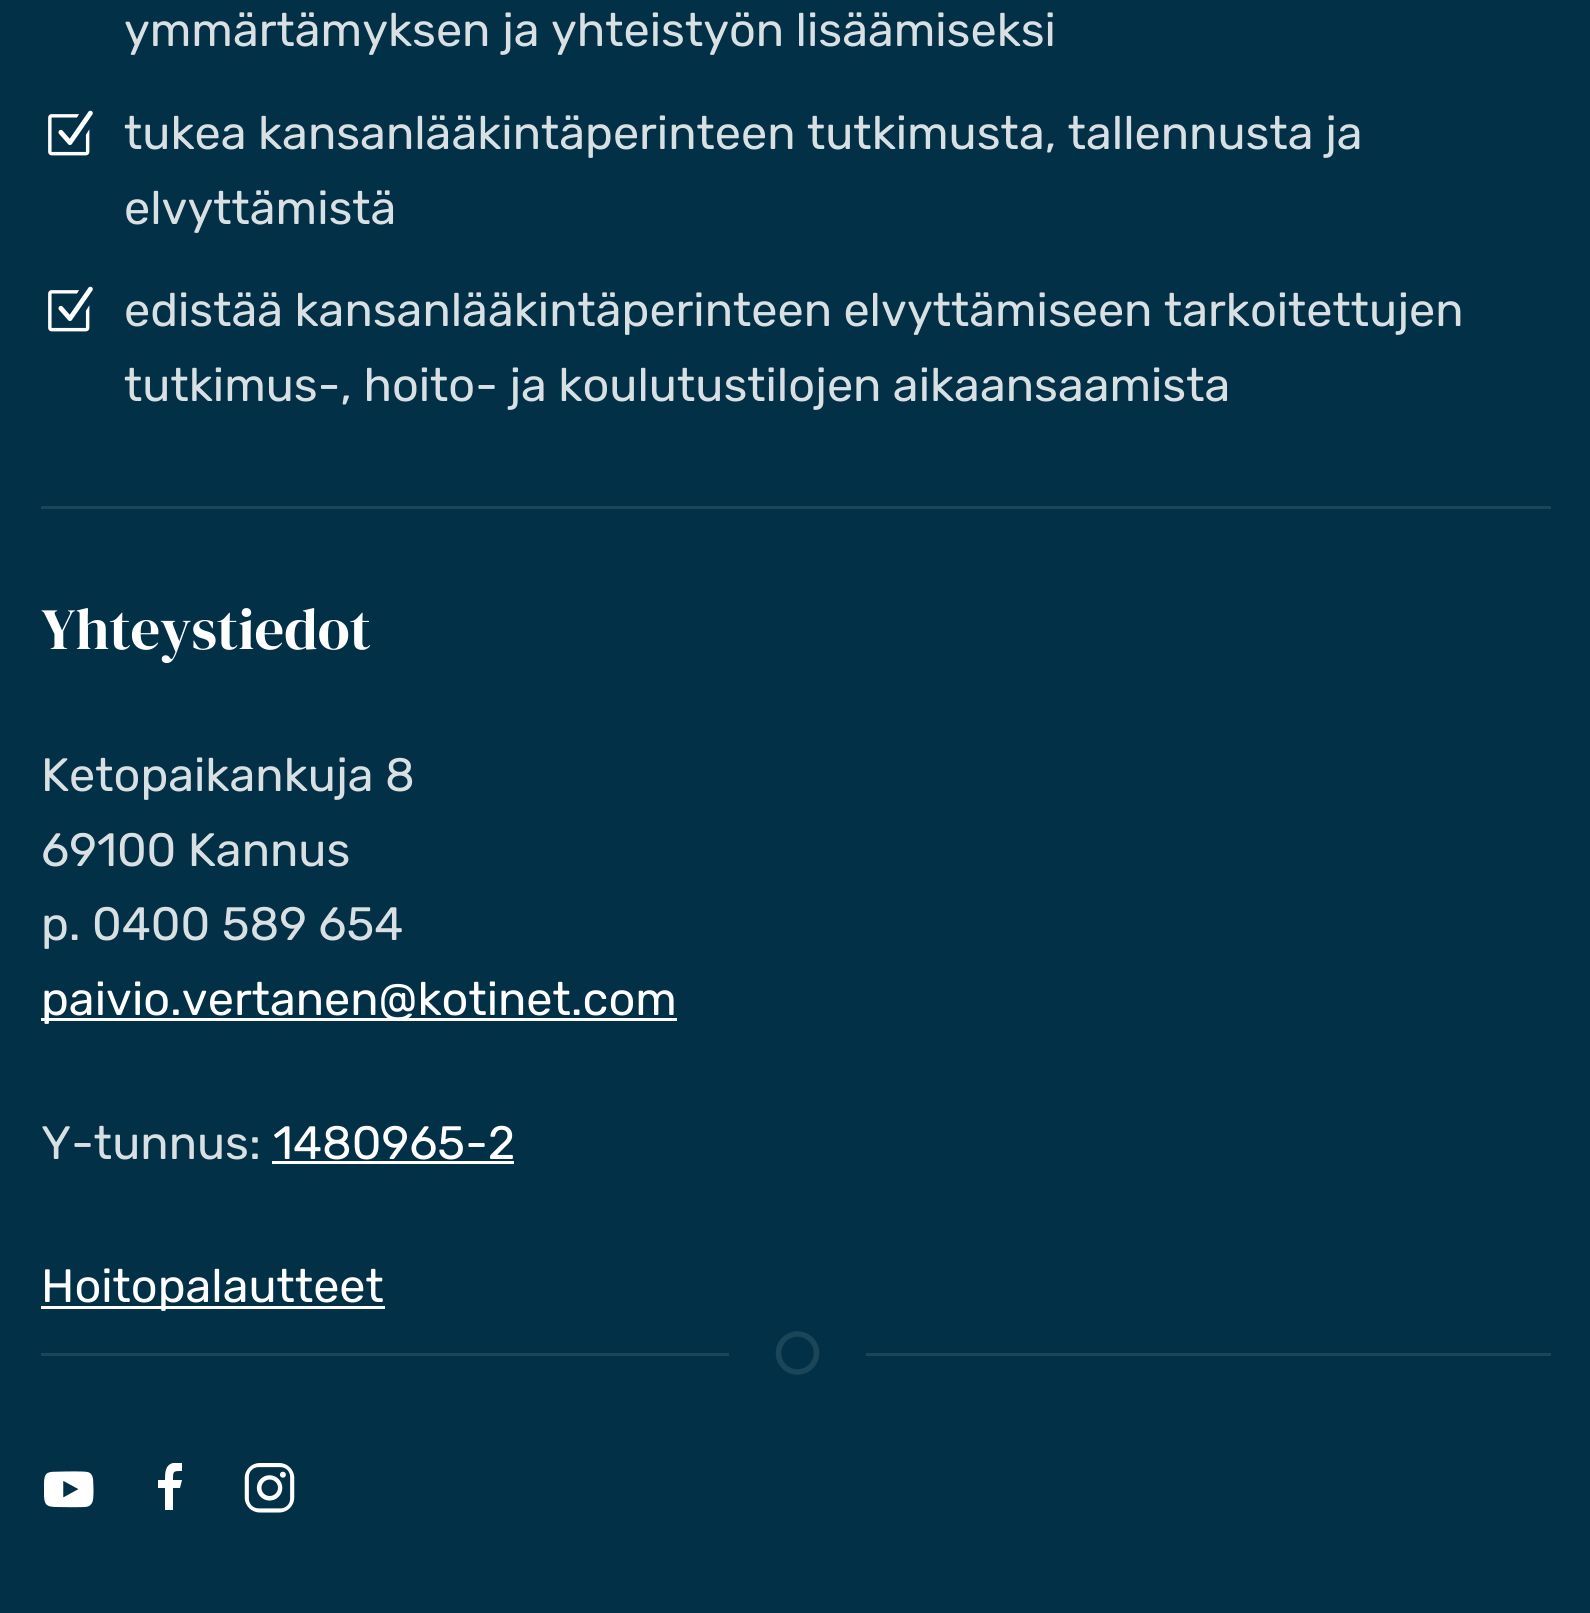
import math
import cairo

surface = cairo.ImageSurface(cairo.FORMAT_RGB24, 1590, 1613)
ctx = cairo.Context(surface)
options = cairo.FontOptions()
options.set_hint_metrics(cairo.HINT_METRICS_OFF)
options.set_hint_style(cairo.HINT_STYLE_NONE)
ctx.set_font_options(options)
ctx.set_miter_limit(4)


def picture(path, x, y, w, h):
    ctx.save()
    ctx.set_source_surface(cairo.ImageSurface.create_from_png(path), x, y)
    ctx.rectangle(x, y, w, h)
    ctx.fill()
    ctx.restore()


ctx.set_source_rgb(0.008, 0.188, 0.278)
ctx.paint()
ctx.select_font_face("Rubik")
ctx.set_font_size(46.75)
ctx.set_source_rgb(0.851, 0.878, 0.89)
ctx.move_to(124, 46)
ctx.show_text("ymmärtämyksen ja yhteistyön lisäämiseksi")
picture("img1.png", 48, 110, 45, 46)
ctx.move_to(124, 149)
ctx.show_text("tukea kansanlääkintäperinteen tutkimusta, tallennusta ja")
ctx.move_to(124, 224)
ctx.show_text("elvyttämistä")
picture("img1.png", 48, 286, 45, 46)
ctx.move_to(124, 326)
ctx.show_text("edistää kansanlääkintäperinteen elvyttämiseen tarkoitettujen")
ctx.move_to(124, 401)
ctx.show_text("tutkimus-, hoito- ja koulutustilojen aikaansaamista")
ctx.set_source_rgb(0.106, 0.271, 0.349)
ctx.rectangle(41, 506, 1510, 3)
ctx.fill()
ctx.select_font_face("DM Serif Display")
ctx.set_font_size(58.5)
ctx.set_source_rgb(1, 1, 1)
ctx.move_to(41, 649)
ctx.show_text("Yhteystiedot")
ctx.select_font_face("Rubik")
ctx.set_font_size(46.75)
ctx.set_source_rgb(0.851, 0.878, 0.89)
ctx.move_to(41, 791)
ctx.show_text("Ketopaikankuja 8")
ctx.move_to(41, 866)
ctx.show_text("69100 Kannus")
ctx.move_to(41, 940)
ctx.show_text("p. 0400 589 654")
ctx.set_source_rgb(1, 1, 1)
ctx.rectangle(41, 1018, 636, 3)
ctx.fill()
ctx.move_to(41, 1015)
ctx.show_text("paivio.vertanen@kotinet.com")
ctx.set_source_rgb(0.851, 0.878, 0.89)
ctx.move_to(41, 1159)
ctx.show_text("Y-tunnus:")
ctx.set_source_rgb(1, 1, 1)
ctx.move_to(273, 1159)
ctx.show_text("1480965-2")
ctx.rectangle(272, 1161, 242, 3)
ctx.fill()
ctx.rectangle(41, 1306, 344, 3)
ctx.fill()
ctx.move_to(41, 1302)
ctx.show_text("Hoitopalautteet")
ctx.new_path()
ctx.arc(797.5, 1353, 19, 0, 2 * math.pi)
ctx.set_source_rgb(0.106, 0.271, 0.349)
ctx.set_line_width(5.5)
ctx.stroke()
ctx.rectangle(41, 1353, 688, 3)
ctx.fill()
ctx.rectangle(866, 1353, 685, 3)
ctx.fill()
picture("img2.png", 44, 1471, 50, 37)
ctx.set_source_rgb(1, 1, 1)
ctx.new_path()
ctx.move_to(173, 1488)
ctx.line_to(180, 1488)
ctx.line_to(182, 1480)
ctx.line_to(173, 1480)
ctx.curve_to(173, 1471, 173, 1471, 182, 1471)
ctx.line_to(182, 1463)
ctx.line_to(173, 1463)
ctx.curve_to(165, 1465, 165, 1473, 165, 1480)
ctx.line_to(158, 1480)
ctx.line_to(158, 1488)
ctx.line_to(165, 1488)
ctx.line_to(165, 1510)
ctx.line_to(173, 1510)
ctx.close_path()
ctx.fill()
picture("img3.png", 244, 1463, 51, 50)
surface.write_to_png("page.png")
